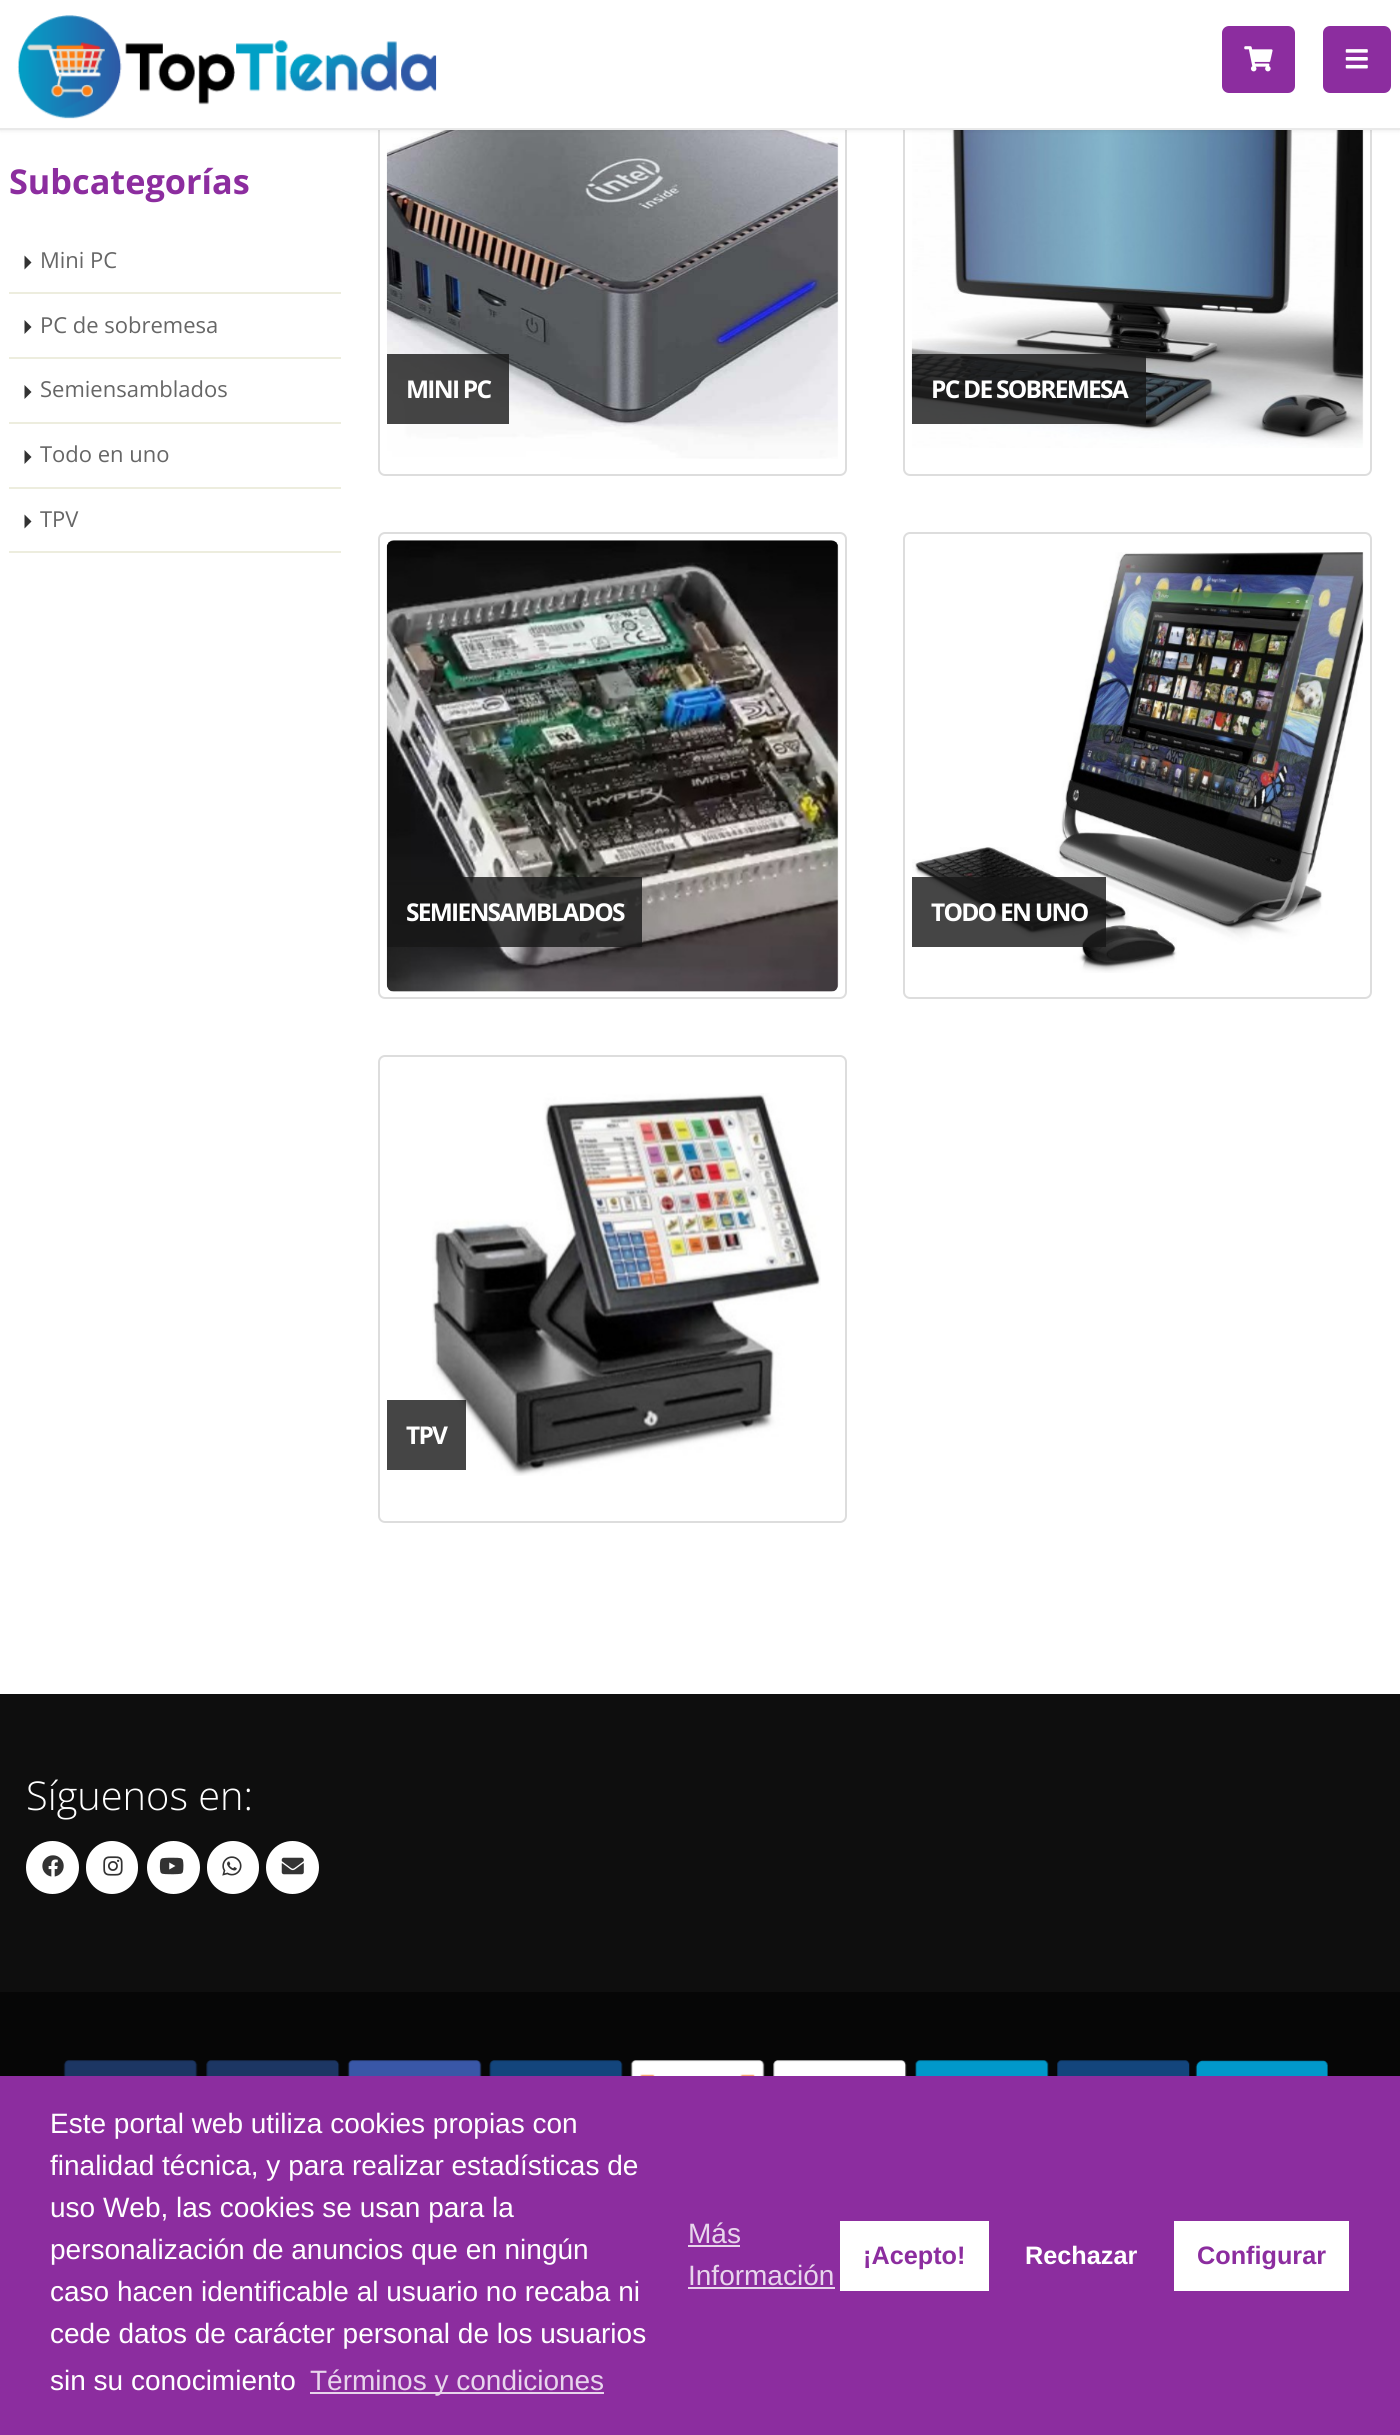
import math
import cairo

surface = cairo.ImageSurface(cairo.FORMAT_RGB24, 1400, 2435)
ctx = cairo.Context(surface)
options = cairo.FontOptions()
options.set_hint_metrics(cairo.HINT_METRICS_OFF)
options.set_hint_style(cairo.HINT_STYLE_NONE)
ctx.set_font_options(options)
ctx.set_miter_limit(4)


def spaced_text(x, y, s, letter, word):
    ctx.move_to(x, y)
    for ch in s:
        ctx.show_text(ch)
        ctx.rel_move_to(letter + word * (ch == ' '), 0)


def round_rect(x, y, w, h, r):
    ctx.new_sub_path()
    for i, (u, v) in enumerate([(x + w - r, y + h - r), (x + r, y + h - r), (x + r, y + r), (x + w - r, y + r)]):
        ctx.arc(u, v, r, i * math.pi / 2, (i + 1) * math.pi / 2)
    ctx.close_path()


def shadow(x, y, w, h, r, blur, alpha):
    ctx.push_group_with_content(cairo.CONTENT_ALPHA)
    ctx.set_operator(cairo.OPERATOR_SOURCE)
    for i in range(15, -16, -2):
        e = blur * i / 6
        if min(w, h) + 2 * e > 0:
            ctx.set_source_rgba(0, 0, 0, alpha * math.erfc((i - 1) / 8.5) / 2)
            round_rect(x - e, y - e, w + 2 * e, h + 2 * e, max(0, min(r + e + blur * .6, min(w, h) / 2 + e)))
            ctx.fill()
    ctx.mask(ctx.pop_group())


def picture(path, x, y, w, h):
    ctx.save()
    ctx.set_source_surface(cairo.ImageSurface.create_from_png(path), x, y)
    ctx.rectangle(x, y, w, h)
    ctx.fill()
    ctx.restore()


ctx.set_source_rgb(1, 1, 1)
ctx.paint()
round_rect(379, 10, 467, 465, 6)
ctx.set_source_rgb(0.867, 0.867, 0.867)
ctx.stroke()
picture("img4.png", 386, 130, 453, 329)
round_rect(904, 10, 467, 465, 6)
ctx.stroke()
picture("img5.png", 911, 130, 453, 318)
ctx.set_source_rgb(0, 0, 0)
shadow(0, -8, 1400, 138, 0, 2.5, 0.1)
ctx.set_source_rgb(1, 1, 1)
ctx.rectangle(0, 0, 1400, 128)
ctx.fill()
ctx.set_source_rgb(0.914, 0.914, 0.914)
ctx.rectangle(0, 128, 1400, 2)
ctx.fill()
picture("img1.png", 17, 15, 420, 104)
ctx.set_source_rgb(0.549, 0.176, 0.624)
round_rect(1223, 27, 71, 65, 6)
ctx.fill_preserve()
ctx.stroke()
picture("img2.png", 1244, 46, 29, 26)
round_rect(1324, 27, 66, 65, 6)
ctx.fill_preserve()
ctx.stroke()
picture("img3.png", 1345, 49, 23, 20)
ctx.select_font_face("Open Sans", cairo.FONT_SLANT_NORMAL, cairo.FONT_WEIGHT_BOLD)
ctx.set_font_size(34.25)
ctx.move_to(9, 194)
ctx.show_text("Subcategorías")
ctx.set_source_rgb(0.929, 0.929, 0.871)
ctx.rectangle(9, 292, 332, 2)
ctx.fill()
ctx.set_source_rgb(0.2, 0.2, 0.2)
ctx.new_path()
ctx.move_to(24.5, 269.5)
ctx.line_to(24.5, 255.5)
ctx.line_to(31.5, 262.5)
ctx.close_path()
ctx.fill()
ctx.select_font_face("Open Sans")
ctx.set_font_size(22)
ctx.set_source_rgb(0.4, 0.4, 0.4)
ctx.move_to(40, 268)
ctx.show_text("Mini PC")
ctx.set_source_rgb(0.929, 0.929, 0.871)
ctx.rectangle(9, 357, 332, 2)
ctx.fill()
ctx.set_source_rgb(0.2, 0.2, 0.2)
ctx.new_path()
ctx.move_to(24.5, 334)
ctx.line_to(24.5, 320)
ctx.line_to(31.5, 327)
ctx.close_path()
ctx.fill()
ctx.set_source_rgb(0.4, 0.4, 0.4)
ctx.move_to(40, 333)
ctx.show_text("PC de sobremesa")
ctx.set_source_rgb(0.929, 0.929, 0.871)
ctx.rectangle(9, 422, 332, 2)
ctx.fill()
ctx.set_source_rgb(0.2, 0.2, 0.2)
ctx.new_path()
ctx.move_to(24.5, 399)
ctx.line_to(24.5, 385)
ctx.line_to(31.5, 392)
ctx.close_path()
ctx.fill()
ctx.set_source_rgb(0.4, 0.4, 0.4)
ctx.move_to(40, 397)
ctx.show_text("Semiensamblados")
ctx.set_source_rgb(0.929, 0.929, 0.871)
ctx.rectangle(9, 487, 332, 2)
ctx.fill()
ctx.set_source_rgb(0.2, 0.2, 0.2)
ctx.new_path()
ctx.move_to(24.5, 464)
ctx.line_to(24.5, 450)
ctx.line_to(31.5, 457)
ctx.close_path()
ctx.fill()
ctx.set_source_rgb(0.4, 0.4, 0.4)
ctx.move_to(40, 462)
ctx.show_text("Todo en uno")
ctx.set_source_rgb(0.929, 0.929, 0.871)
ctx.rectangle(9, 551, 332, 2)
ctx.fill()
ctx.set_source_rgb(0.2, 0.2, 0.2)
ctx.new_path()
ctx.move_to(24.5, 528.5)
ctx.line_to(24.5, 514.5)
ctx.line_to(31.5, 521.5)
ctx.close_path()
ctx.fill()
ctx.set_source_rgb(0.4, 0.4, 0.4)
ctx.move_to(40, 527)
ctx.show_text("TPV")
ctx.set_source_rgba(0.09, 0.09, 0.09, 0.8)
ctx.rectangle(387, 354, 122, 70)
ctx.fill()
ctx.select_font_face("Open Sans", cairo.FONT_SLANT_NORMAL, cairo.FONT_WEIGHT_BOLD)
ctx.set_font_size(24.5)
ctx.set_source_rgb(1, 1, 1)
spaced_text(406, 398, "MINI PC", -1.75, 0)
ctx.set_source_rgba(0.09, 0.09, 0.09, 0.8)
ctx.rectangle(912, 354, 234, 70)
ctx.fill()
ctx.set_source_rgb(1, 1, 1)
spaced_text(931, 398, "PC DE SOBREMESA", -1.75, 0)
round_rect(379, 533, 467, 465, 6)
ctx.set_source_rgb(0.867, 0.867, 0.867)
ctx.stroke()
picture("img6.png", 386, 540, 453, 452)
ctx.set_source_rgba(0.09, 0.09, 0.09, 0.8)
ctx.rectangle(387, 877, 255, 70)
ctx.fill()
ctx.set_source_rgb(1, 1, 1)
spaced_text(406, 921, "SEMIENSAMBLADOS", -1.75, 0)
round_rect(904, 533, 467, 465, 6)
ctx.set_source_rgb(0.867, 0.867, 0.867)
ctx.stroke()
picture("img7.png", 912, 552, 452, 421)
ctx.set_source_rgba(0.09, 0.09, 0.09, 0.8)
ctx.rectangle(912, 877, 194, 70)
ctx.fill()
ctx.set_source_rgb(1, 1, 1)
spaced_text(931, 921, "TODO EN UNO", -1.75, 0)
round_rect(379, 1056, 467, 466, 6)
ctx.set_source_rgb(0.867, 0.867, 0.867)
ctx.stroke()
picture("img8.png", 432, 1093, 389, 383)
ctx.set_source_rgba(0.09, 0.09, 0.09, 0.8)
ctx.rectangle(387, 1400, 79, 70)
ctx.fill()
ctx.set_source_rgb(1, 1, 1)
spaced_text(406, 1444, "TPV", -1.75, 0)
ctx.set_source_rgb(0.055, 0.055, 0.055)
ctx.rectangle(0, 1694, 1400, 298)
ctx.fill()
ctx.select_font_face("Open Sans Light")
ctx.set_font_size(39.75)
ctx.set_source_rgb(1, 1, 1)
ctx.move_to(26, 1810)
ctx.show_text("Síguenos en:")
ctx.new_path()
ctx.arc(52.5, 1867.5, 26.5, 0, 2 * math.pi)
ctx.fill()
picture("img9.png", 42, 1855, 22, 22)
round_rect(86, 1841, 52, 53, 26)
ctx.fill()
picture("img10.png", 103, 1856, 20, 20)
ctx.arc(173.5, 1867.5, 26.5, 0, 2 * math.pi)
ctx.fill()
picture("img11.png", 159, 1857, 25, 18)
round_rect(207, 1841, 52, 53, 26)
ctx.fill()
picture("img12.png", 222, 1856, 20, 20)
ctx.arc(292.5, 1867.5, 26.5, 0, 2 * math.pi)
ctx.fill()
picture("img13.png", 281, 1857, 23, 18)
ctx.set_source_rgb(0.024, 0.024, 0.024)
ctx.rectangle(0, 1992, 1400, 84)
ctx.fill()
picture("img14.png", 63, 2060, 1265, 16)
ctx.set_source_rgb(0.549, 0.176, 0.624)
ctx.rectangle(0, 2076, 1400, 359)
ctx.fill()
ctx.select_font_face("Liberation Sans")
ctx.set_font_size(28)
ctx.set_source_rgb(1, 1, 1)
ctx.move_to(50, 2133)
ctx.show_text("Este portal web utiliza cookies propias con")
ctx.move_to(50, 2175)
ctx.show_text("finalidad técnica, y para realizar estadísticas de")
ctx.move_to(50, 2217)
ctx.show_text("uso Web, las cookies se usan para la")
ctx.move_to(50, 2259)
ctx.show_text("personalización de anuncios que en ningún")
ctx.move_to(50, 2301)
ctx.show_text("caso hacen identificable al usuario no recaba ni")
ctx.move_to(50, 2343)
ctx.show_text("cede datos de carácter personal de los usuarios")
ctx.move_to(50, 2390)
ctx.show_text("sin su conocimiento")
ctx.set_source_rgb(0.91, 0.835, 0.925)
ctx.rectangle(310, 2392, 294, 2)
ctx.fill()
ctx.move_to(310, 2390)
ctx.show_text("Términos y condiciones")
ctx.move_to(688, 2243)
ctx.show_text("Más")
ctx.rectangle(688, 2245, 52, 2)
ctx.fill()
ctx.move_to(688, 2285)
ctx.show_text("Información")
ctx.rectangle(688, 2287, 147, 2)
ctx.fill()
ctx.set_source_rgb(1, 1, 1)
ctx.rectangle(840, 2221, 149, 70)
ctx.fill()
ctx.select_font_face("Liberation Sans", cairo.FONT_SLANT_NORMAL, cairo.FONT_WEIGHT_BOLD)
ctx.set_font_size(25.25)
ctx.set_source_rgb(0.549, 0.176, 0.624)
ctx.move_to(863, 2264)
ctx.show_text("¡Acepto!")
ctx.set_source_rgb(1, 1, 1)
ctx.move_to(1025, 2264)
ctx.show_text("Rechazar")
ctx.rectangle(1174, 2221, 175, 70)
ctx.fill()
ctx.set_source_rgb(0.549, 0.176, 0.624)
ctx.move_to(1197, 2264)
ctx.show_text("Configurar")
surface.write_to_png("page.png")
